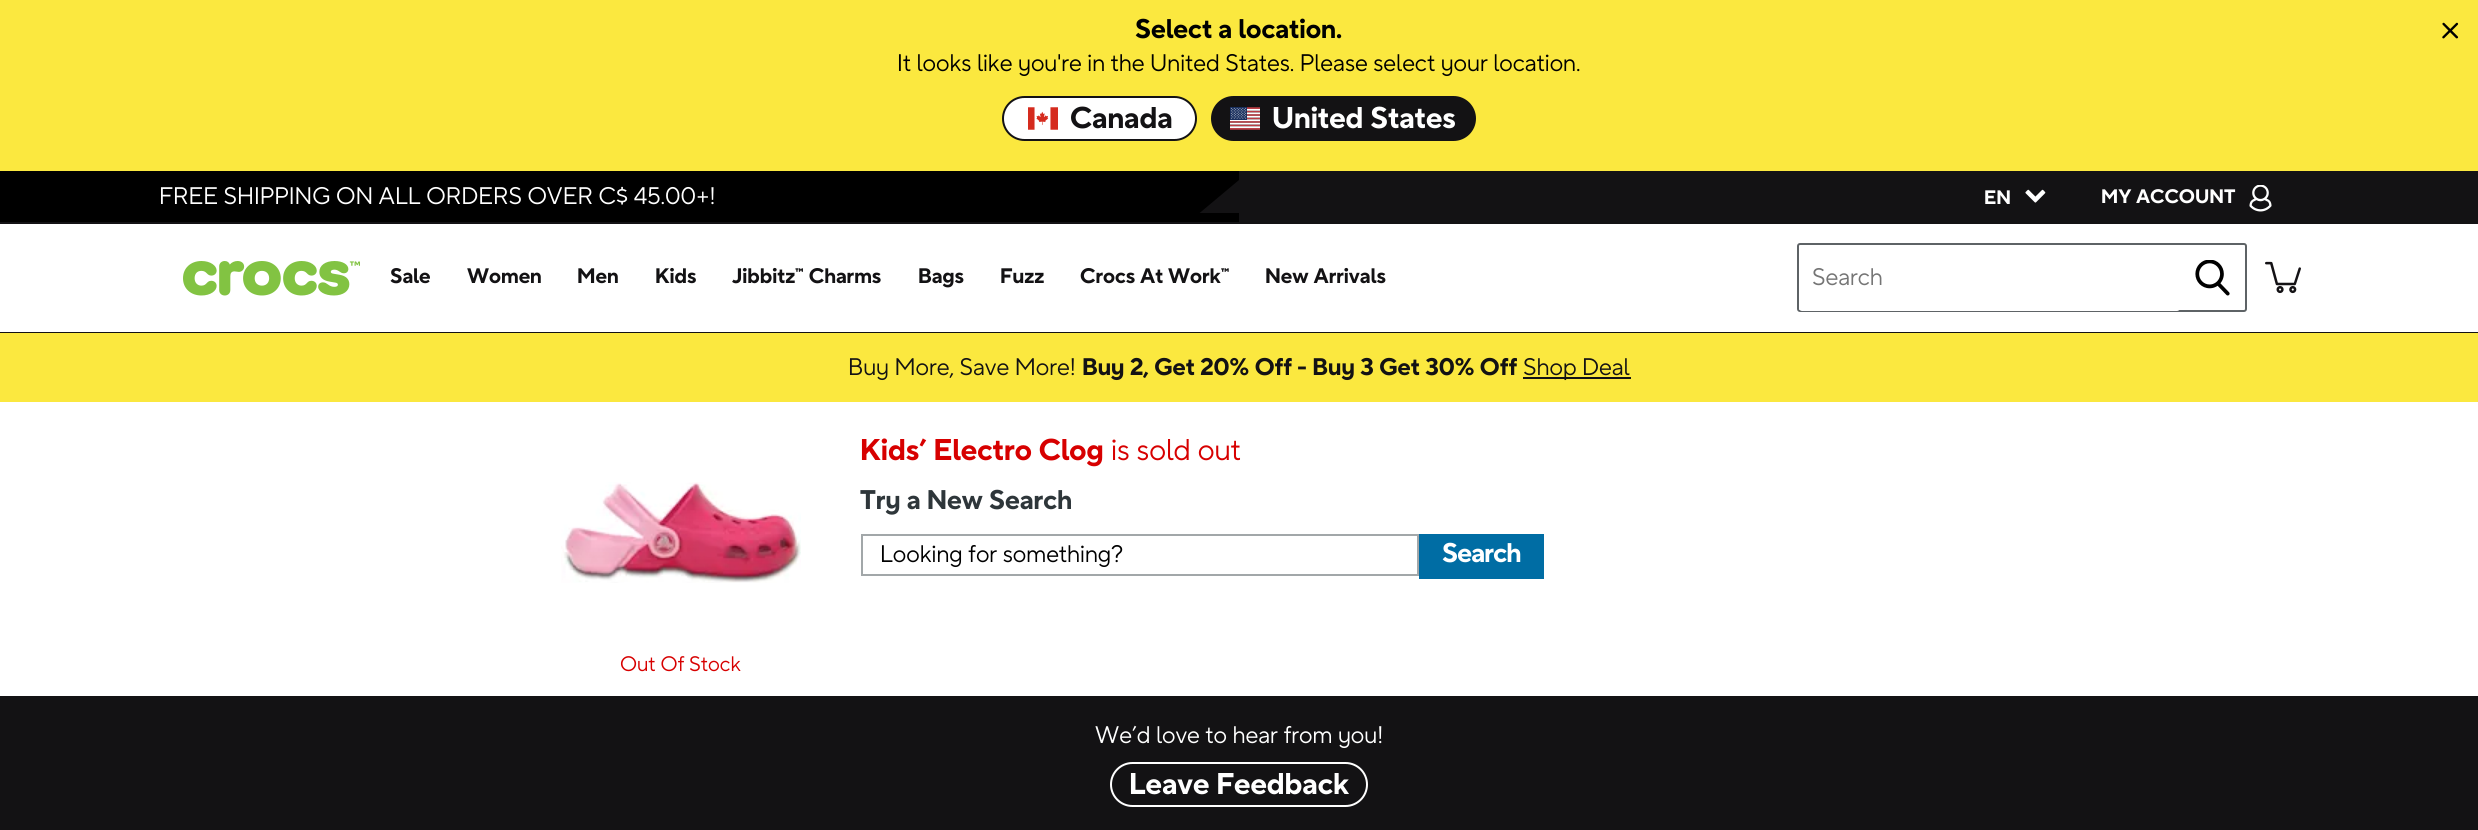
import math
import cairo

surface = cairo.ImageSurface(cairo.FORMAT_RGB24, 2478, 830)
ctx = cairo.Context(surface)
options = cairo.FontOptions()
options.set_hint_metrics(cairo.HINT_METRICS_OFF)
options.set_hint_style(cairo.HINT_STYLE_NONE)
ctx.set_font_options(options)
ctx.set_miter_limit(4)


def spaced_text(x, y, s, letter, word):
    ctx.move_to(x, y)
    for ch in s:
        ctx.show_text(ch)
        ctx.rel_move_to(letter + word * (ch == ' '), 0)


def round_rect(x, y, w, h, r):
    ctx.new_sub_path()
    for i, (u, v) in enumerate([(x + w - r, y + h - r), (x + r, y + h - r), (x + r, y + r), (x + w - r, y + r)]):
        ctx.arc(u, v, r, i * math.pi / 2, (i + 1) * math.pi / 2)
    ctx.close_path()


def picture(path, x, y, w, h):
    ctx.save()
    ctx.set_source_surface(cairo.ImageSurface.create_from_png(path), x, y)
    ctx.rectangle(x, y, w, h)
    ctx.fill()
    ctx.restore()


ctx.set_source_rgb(1, 1, 1)
ctx.paint()
ctx.set_source_rgb(0.984, 0.91, 0.247)
ctx.rectangle(0, 0, 2478, 171)
ctx.fill()
ctx.select_font_face("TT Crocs", cairo.FONT_SLANT_NORMAL, cairo.FONT_WEIGHT_BOLD)
ctx.set_font_size(27)
ctx.set_source_rgb(0, 0, 0)
ctx.move_to(1135, 38)
ctx.show_text("Select a location.")
ctx.select_font_face("TT Crocs")
ctx.set_font_size(24)
ctx.move_to(897, 71)
ctx.show_text("It looks like you're in the United States. Please select your location.")
ctx.set_source_rgb(1, 1, 1)
round_rect(1003, 97, 193, 43, 21.5)
ctx.fill_preserve()
ctx.set_source_rgb(0.078, 0.071, 0.082)
ctx.stroke()
picture("img1.png", 1028, 107, 30, 23)
ctx.select_font_face("TT Crocs", cairo.FONT_SLANT_NORMAL, cairo.FONT_WEIGHT_BOLD)
ctx.set_font_size(30)
ctx.move_to(1070, 128)
ctx.show_text("Canada")
round_rect(1212, 97, 263, 43, 21.5)
ctx.fill_preserve()
ctx.stroke()
picture("img2.png", 1230, 107, 30, 23)
ctx.set_source_rgb(1, 1, 1)
ctx.move_to(1272, 128)
ctx.show_text("United States")
picture("img3.png", 2442, 22, 17, 17)
ctx.set_source_rgb(0, 0, 0)
ctx.rectangle(0, 171, 1239, 51)
ctx.fill()
ctx.set_source_rgb(0.078, 0.071, 0.082)
ctx.rectangle(1239, 171, 1239, 51)
ctx.fill()
ctx.select_font_face("TT Crocs")
ctx.set_font_size(24)
ctx.set_source_rgb(1, 1, 1)
ctx.move_to(159, 204)
ctx.show_text("FREE SHIPPING ON ALL ORDERS OVER C$ 45.00+!")
ctx.save()
ctx.rectangle(159, 180, 1080, 33)
ctx.clip()
ctx.set_source_rgb(0.078, 0.071, 0.082)
ctx.new_path()
ctx.move_to(1239, 180)
ctx.line_to(1384, 352)
ctx.line_to(1211, 497)
ctx.line_to(1067, 324)
ctx.close_path()
ctx.fill()
ctx.restore()
ctx.select_font_face("TT Crocs", cairo.FONT_SLANT_NORMAL, cairo.FONT_WEIGHT_BOLD)
ctx.set_font_size(19.5)
ctx.move_to(1984, 204)
ctx.show_text("EN")
picture("img4.png", 2025, 189, 21, 14)
ctx.move_to(2101, 203)
ctx.show_text("MY ACCOUNT")
picture("img5.png", 2249, 185, 23, 27)
ctx.set_source_rgb(0.078, 0.071, 0.082)
ctx.rectangle(0, 222, 2478, 2)
ctx.fill()
ctx.rectangle(0, 332, 2478, 1)
ctx.fill()
picture("img6.png", 183, 261, 177, 35)
ctx.set_font_size(21)
ctx.move_to(390, 283)
ctx.show_text("Sale")
ctx.move_to(467, 283)
ctx.show_text("Women")
ctx.move_to(577, 283)
ctx.show_text("Men")
ctx.move_to(655, 283)
ctx.show_text("Kids")
ctx.move_to(732, 283)
ctx.show_text("Jibbitz™ Charms")
ctx.move_to(918, 283)
ctx.show_text("Bags")
ctx.move_to(1000, 283)
ctx.show_text("Fuzz")
ctx.move_to(1080, 283)
ctx.show_text("Crocs At Work™")
ctx.move_to(1265, 283)
ctx.show_text("New Arrivals")
round_rect(1798, 244, 448, 67, 2)
ctx.set_source_rgb(0.369, 0.388, 0.4)
ctx.stroke()
ctx.set_source_rgb(1, 1, 1)
round_rect(1799, 245, 381, 66, 3)
ctx.fill()
ctx.select_font_face("TT Crocs")
ctx.set_font_size(24)
ctx.set_source_rgb(0.459, 0.459, 0.459)
ctx.move_to(1812, 285)
ctx.show_text("Search")
picture("img7.png", 2195, 260, 35, 36)
picture("img8.png", 2265, 261, 36, 33)
ctx.set_source_rgb(0.984, 0.91, 0.247)
ctx.rectangle(0, 333, 2478, 69)
ctx.fill()
ctx.set_source_rgb(0.078, 0.071, 0.082)
ctx.move_to(848, 375)
ctx.show_text("Buy More, Save More!")
ctx.select_font_face("TT Crocs", cairo.FONT_SLANT_NORMAL, cairo.FONT_WEIGHT_BOLD)
ctx.move_to(1082, 375)
ctx.show_text("Buy 2, Get 20% Off - Buy 3 Get 30% Off")
ctx.rectangle(1523, 377, 108, 2)
ctx.fill()
ctx.select_font_face("TT Crocs")
ctx.move_to(1523, 375)
ctx.show_text("Shop Deal")
ctx.select_font_face("TT Crocs", cairo.FONT_SLANT_NORMAL, cairo.FONT_WEIGHT_BOLD)
ctx.set_font_size(30)
ctx.set_source_rgb(0.843, 0, 0)
ctx.move_to(860, 460)
ctx.show_text("Kids’ Electro Clog")
ctx.select_font_face("TT Crocs")
ctx.move_to(1111, 460)
ctx.show_text("is sold out")
ctx.select_font_face("TT Crocs", cairo.FONT_SLANT_NORMAL, cairo.FONT_WEIGHT_BOLD)
ctx.set_font_size(27)
ctx.set_source_rgb(0.18, 0.212, 0.227)
ctx.move_to(860, 509)
ctx.show_text("Try a New Search")
ctx.rectangle(862, 535, 556, 40)
ctx.set_source_rgb(0.635, 0.655, 0.663)
ctx.stroke()
ctx.select_font_face("TT Crocs")
ctx.set_font_size(24)
ctx.set_source_rgb(0, 0, 0)
ctx.move_to(880, 562)
ctx.show_text("Looking for something?")
ctx.set_source_rgb(0, 0.427, 0.643)
ctx.rectangle(1419, 534, 125, 45)
ctx.fill()
ctx.select_font_face("TT Crocs", cairo.FONT_SLANT_NORMAL, cairo.FONT_WEIGHT_BOLD)
ctx.set_font_size(27)
ctx.set_source_rgb(1, 1, 1)
spaced_text(1442, 562, "Search", -0.75, 0)
picture("img9.png", 561, 482, 240, 101)
ctx.select_font_face("TT Crocs")
ctx.set_font_size(21)
ctx.set_source_rgb(0.843, 0, 0)
ctx.move_to(620, 671)
ctx.show_text("Out Of Stock")
ctx.set_source_rgb(0.078, 0.071, 0.082)
ctx.rectangle(0, 696, 2478, 134)
ctx.fill()
ctx.set_font_size(24)
ctx.set_source_rgb(1, 1, 1)
ctx.move_to(1095, 743)
ctx.show_text("We’d love to hear from you!")
round_rect(1111, 763, 256, 43, 21.5)
ctx.stroke()
ctx.select_font_face("TT Crocs", cairo.FONT_SLANT_NORMAL, cairo.FONT_WEIGHT_BOLD)
ctx.set_font_size(30)
ctx.move_to(1129, 794)
ctx.show_text("Leave Feedback")
surface.write_to_png("page.png")
